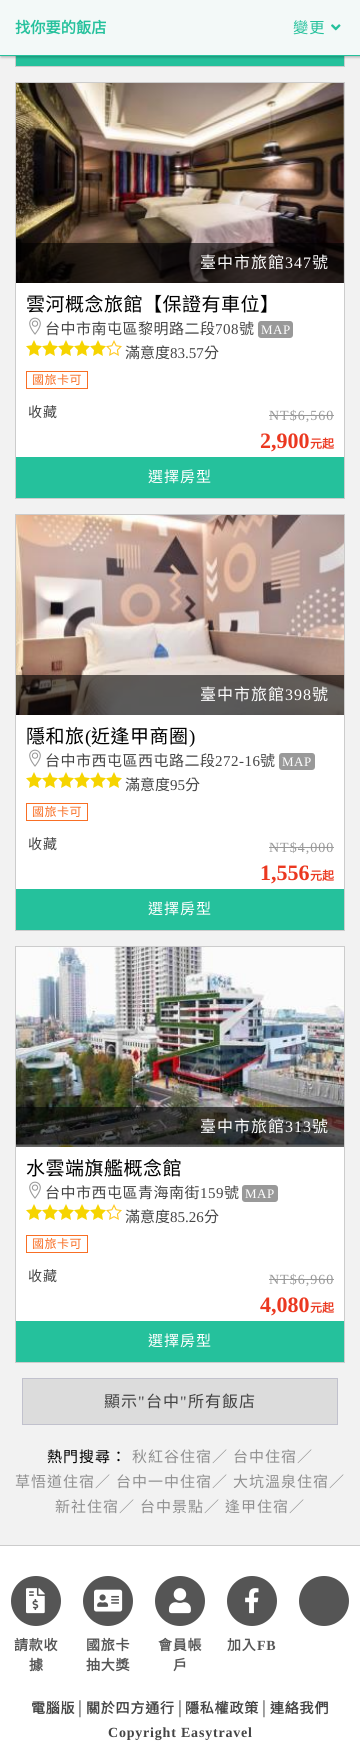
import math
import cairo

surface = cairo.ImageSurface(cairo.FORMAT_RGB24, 360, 1759)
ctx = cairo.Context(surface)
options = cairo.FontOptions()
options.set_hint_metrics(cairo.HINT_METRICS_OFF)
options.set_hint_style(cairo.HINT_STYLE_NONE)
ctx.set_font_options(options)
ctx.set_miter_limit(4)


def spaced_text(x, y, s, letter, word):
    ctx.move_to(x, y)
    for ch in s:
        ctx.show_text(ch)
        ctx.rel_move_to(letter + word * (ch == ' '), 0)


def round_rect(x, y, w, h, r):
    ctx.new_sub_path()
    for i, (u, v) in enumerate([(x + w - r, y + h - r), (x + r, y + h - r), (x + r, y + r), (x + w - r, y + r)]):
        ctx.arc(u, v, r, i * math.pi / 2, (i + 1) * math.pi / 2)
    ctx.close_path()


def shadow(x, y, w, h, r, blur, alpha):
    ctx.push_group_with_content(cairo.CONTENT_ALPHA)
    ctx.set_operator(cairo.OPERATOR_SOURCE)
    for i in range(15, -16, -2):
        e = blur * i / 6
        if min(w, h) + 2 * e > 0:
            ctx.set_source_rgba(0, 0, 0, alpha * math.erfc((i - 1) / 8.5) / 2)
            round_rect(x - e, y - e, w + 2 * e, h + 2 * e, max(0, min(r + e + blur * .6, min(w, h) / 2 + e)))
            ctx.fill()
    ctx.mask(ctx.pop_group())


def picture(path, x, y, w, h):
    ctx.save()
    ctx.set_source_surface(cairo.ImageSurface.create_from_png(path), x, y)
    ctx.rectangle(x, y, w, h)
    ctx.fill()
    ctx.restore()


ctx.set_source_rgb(1, 1, 1)
ctx.paint()
ctx.set_source_rgb(0.949, 0.949, 0.949)
ctx.rectangle(0, 56, 360, 1489)
ctx.fill()
ctx.rectangle(15.5, -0.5, 329, 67)
ctx.set_source_rgb(0.8, 0.8, 0.8)
ctx.set_line_width(1)
ctx.stroke()
ctx.set_source_rgb(0.145, 0.757, 0.612)
ctx.rectangle(16, 56, 328, 10)
ctx.fill()
ctx.set_source_rgb(0, 0, 0)
shadow(1, 1, 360, 56, 0, 1.5, 0.3)
ctx.set_source_rgb(0.953, 0.976, 0.969)
ctx.rectangle(0, 0, 360, 55)
ctx.fill()
ctx.set_source_rgb(0.145, 0.757, 0.612)
ctx.rectangle(0, 55, 360, 1)
ctx.fill()
ctx.select_font_face("Noto Sans CJK TC", cairo.FONT_SLANT_NORMAL, cairo.FONT_WEIGHT_BOLD)
ctx.set_font_size(15.25)
ctx.move_to(15, 33)
ctx.show_text("找你要的飯店")
ctx.select_font_face("Noto Sans CJK TC")
spaced_text(293, 33, "變更", 1, 0)
picture("img1.png", 331, 24, 10, 7)
ctx.set_source_rgb(1, 1, 1)
ctx.rectangle(16, 83, 328, 374)
ctx.fill()
ctx.rectangle(15.5, 82.5, 329, 416)
ctx.set_source_rgb(0.8, 0.8, 0.8)
ctx.stroke()
picture("img2.png", 16, 83, 328, 200)
ctx.set_source_rgba(0, 0, 0, 0.6)
ctx.rectangle(16, 243, 328, 40)
ctx.fill()
ctx.set_font_size(16)
ctx.set_source_rgb(1, 1, 1)
spaced_text(200, 268, "臺中市旅館", 1, 0)
ctx.select_font_face("Liberation Serif")
spaced_text(285, 268, "347", 1, 0)
ctx.select_font_face("Noto Sans CJK TC")
spaced_text(312, 268, "號", 1, 0)
ctx.set_font_size(19)
ctx.set_source_rgb(0, 0, 0)
spaced_text(26, 311, "雲河概念旅館【保證有車位】", 0.5, 0)
picture("img3.png", 29, 317, 12, 18)
ctx.set_font_size(15)
ctx.set_source_rgb(0.267, 0.267, 0.267)
spaced_text(45, 334, "台中市南屯區黎明路二段", 0.5, 0)
ctx.select_font_face("Liberation Serif")
spaced_text(215, 334, "708", 0.5, 0)
ctx.select_font_face("Noto Sans CJK TC")
spaced_text(239, 334, "號", 0.5, 0)
ctx.set_source_rgb(0.6, 0.6, 0.6)
round_rect(258, 321, 35, 17, 3)
ctx.fill()
ctx.select_font_face("Liberation Serif")
ctx.set_font_size(13)
ctx.set_source_rgb(1, 1, 1)
spaced_text(261, 334, "MAP", 0.5, 0)
picture("img4.png", 26, 340, 16, 16)
picture("img4.png", 42, 340, 16, 16)
picture("img4.png", 58, 340, 16, 16)
picture("img4.png", 74, 340, 16, 16)
picture("img4.png", 90, 340, 16, 16)
picture("img5.png", 106, 340, 16, 16)
ctx.select_font_face("Noto Sans CJK TC")
ctx.set_font_size(15)
ctx.set_source_rgb(0.267, 0.267, 0.267)
ctx.move_to(125, 358)
ctx.show_text("滿意度")
ctx.select_font_face("Liberation Serif")
ctx.move_to(170, 358)
ctx.show_text("83.57")
ctx.select_font_face("Noto Sans CJK TC")
ctx.move_to(204, 358)
ctx.show_text("分")
ctx.rectangle(26.5, 371.5, 61, 17)
ctx.set_source_rgb(0.969, 0.435, 0.145)
ctx.stroke()
ctx.set_font_size(12)
spaced_text(32, 384, "國旅卡可", 0.5, 0)
ctx.set_font_size(14)
ctx.set_source_rgb(0.267, 0.267, 0.267)
spaced_text(28, 417, "收藏", 1, 0)
ctx.select_font_face("Liberation Serif")
ctx.set_source_rgb(0.6, 0.6, 0.6)
spaced_text(269, 420, "NT$6,560", 1, 0)
ctx.rectangle(269, 415, 65, 1)
ctx.fill()
ctx.select_font_face("Liberation Serif", cairo.FONT_SLANT_NORMAL, cairo.FONT_WEIGHT_BOLD)
ctx.set_font_size(22)
ctx.set_source_rgb(0.918, 0.22, 0.125)
ctx.move_to(260, 448)
ctx.show_text("2,900")
ctx.select_font_face("Noto Sans CJK TC", cairo.FONT_SLANT_NORMAL, cairo.FONT_WEIGHT_BOLD)
ctx.set_font_size(12)
ctx.move_to(310, 448)
ctx.show_text("元起")
ctx.set_source_rgb(0.145, 0.757, 0.612)
ctx.rectangle(16, 457, 328, 41)
ctx.fill()
ctx.select_font_face("Noto Sans CJK TC")
ctx.set_font_size(15)
ctx.set_source_rgb(1, 1, 1)
spaced_text(148, 482, "選擇房型", 1, 0)
ctx.rectangle(16, 715, 328, 174)
ctx.fill()
ctx.rectangle(15.5, 514.5, 329, 416)
ctx.set_source_rgb(0.8, 0.8, 0.8)
ctx.stroke()
picture("img6.png", 16, 515, 328, 200)
ctx.set_source_rgba(0, 0, 0, 0.6)
ctx.rectangle(16, 675, 328, 40)
ctx.fill()
ctx.set_font_size(16)
ctx.set_source_rgb(1, 1, 1)
spaced_text(200, 700, "臺中市旅館", 1, 0)
ctx.select_font_face("Liberation Serif")
spaced_text(285, 700, "398", 1, 0)
ctx.select_font_face("Noto Sans CJK TC")
spaced_text(312, 700, "號", 1, 0)
ctx.set_font_size(19)
ctx.set_source_rgb(0, 0, 0)
spaced_text(26, 743, "隱和旅", 0.5, 0)
ctx.select_font_face("Liberation Serif")
spaced_text(85, 743, "(", 0.5, 0)
ctx.select_font_face("Noto Sans CJK TC")
spaced_text(91, 743, "近逢甲商圈", 0.5, 0)
ctx.select_font_face("Liberation Serif")
spaced_text(189, 743, ")", 0.5, 0)
picture("img3.png", 29, 749, 12, 18)
ctx.select_font_face("Noto Sans CJK TC")
ctx.set_font_size(15)
ctx.set_source_rgb(0.267, 0.267, 0.267)
spaced_text(45, 766, "台中市西屯區西屯路二段", 0.5, 0)
ctx.select_font_face("Liberation Serif")
spaced_text(215, 766, "272-16", 0.5, 0)
ctx.select_font_face("Noto Sans CJK TC")
spaced_text(260, 766, "號", 0.5, 0)
ctx.set_source_rgb(0.6, 0.6, 0.6)
round_rect(279, 753, 36, 17, 3)
ctx.fill()
ctx.select_font_face("Liberation Serif")
ctx.set_font_size(13)
ctx.set_source_rgb(1, 1, 1)
spaced_text(282, 766, "MAP", 0.5, 0)
picture("img4.png", 26, 772, 16, 16)
picture("img4.png", 42, 772, 16, 16)
picture("img4.png", 58, 772, 16, 16)
picture("img4.png", 74, 772, 16, 16)
picture("img4.png", 90, 772, 16, 16)
picture("img4.png", 106, 772, 16, 16)
ctx.select_font_face("Noto Sans CJK TC")
ctx.set_font_size(15)
ctx.set_source_rgb(0.267, 0.267, 0.267)
ctx.move_to(125, 790)
ctx.show_text("滿意度")
ctx.select_font_face("Liberation Serif")
ctx.move_to(170, 790)
ctx.show_text("95")
ctx.select_font_face("Noto Sans CJK TC")
ctx.move_to(185, 790)
ctx.show_text("分")
ctx.rectangle(26.5, 803.5, 61, 17)
ctx.set_source_rgb(0.969, 0.435, 0.145)
ctx.stroke()
ctx.set_font_size(12)
spaced_text(32, 816, "國旅卡可", 0.5, 0)
ctx.set_font_size(14)
ctx.set_source_rgb(0.267, 0.267, 0.267)
spaced_text(28, 849, "收藏", 1, 0)
ctx.select_font_face("Liberation Serif")
ctx.set_source_rgb(0.6, 0.6, 0.6)
spaced_text(269, 852, "NT$4,000", 1, 0)
ctx.rectangle(269, 847, 65, 1)
ctx.fill()
ctx.select_font_face("Liberation Serif", cairo.FONT_SLANT_NORMAL, cairo.FONT_WEIGHT_BOLD)
ctx.set_font_size(22)
ctx.set_source_rgb(0.918, 0.22, 0.125)
ctx.move_to(260, 880)
ctx.show_text("1,556")
ctx.select_font_face("Noto Sans CJK TC", cairo.FONT_SLANT_NORMAL, cairo.FONT_WEIGHT_BOLD)
ctx.set_font_size(12)
ctx.move_to(310, 880)
ctx.show_text("元起")
ctx.set_source_rgb(0.145, 0.757, 0.612)
ctx.rectangle(16, 889, 328, 41)
ctx.fill()
ctx.select_font_face("Noto Sans CJK TC")
ctx.set_font_size(15)
ctx.set_source_rgb(1, 1, 1)
spaced_text(148, 914, "選擇房型", 1, 0)
ctx.rectangle(16, 1147, 328, 174)
ctx.fill()
ctx.rectangle(15.5, 946.5, 329, 416)
ctx.set_source_rgb(0.8, 0.8, 0.8)
ctx.stroke()
picture("img7.png", 16, 947, 328, 200)
ctx.set_source_rgba(0, 0, 0, 0.6)
ctx.rectangle(16, 1107, 328, 40)
ctx.fill()
ctx.set_font_size(16)
ctx.set_source_rgb(1, 1, 1)
spaced_text(200, 1132, "臺中市旅館", 1, 0)
ctx.select_font_face("Liberation Serif")
spaced_text(285, 1132, "313", 1, 0)
ctx.select_font_face("Noto Sans CJK TC")
spaced_text(312, 1132, "號", 1, 0)
ctx.set_font_size(19)
ctx.set_source_rgb(0, 0, 0)
spaced_text(26, 1175, "水雲端旗艦概念館", 0.5, 0)
picture("img3.png", 29, 1181, 12, 18)
ctx.set_font_size(15)
ctx.set_source_rgb(0.267, 0.267, 0.267)
spaced_text(45, 1198, "台中市西屯區青海南街", 0.5, 0)
ctx.select_font_face("Liberation Serif")
spaced_text(200, 1198, "159", 0.5, 0)
ctx.select_font_face("Noto Sans CJK TC")
spaced_text(224, 1198, "號", 0.5, 0)
ctx.set_source_rgb(0.6, 0.6, 0.6)
round_rect(242, 1185, 36, 17, 3)
ctx.fill()
ctx.select_font_face("Liberation Serif")
ctx.set_font_size(13)
ctx.set_source_rgb(1, 1, 1)
spaced_text(245, 1198, "MAP", 0.5, 0)
picture("img4.png", 26, 1204, 16, 16)
picture("img4.png", 42, 1204, 16, 16)
picture("img4.png", 58, 1204, 16, 16)
picture("img4.png", 74, 1204, 16, 16)
picture("img4.png", 90, 1204, 16, 16)
picture("img5.png", 106, 1204, 16, 16)
ctx.select_font_face("Noto Sans CJK TC")
ctx.set_font_size(15)
ctx.set_source_rgb(0.267, 0.267, 0.267)
ctx.move_to(125, 1222)
ctx.show_text("滿意度")
ctx.select_font_face("Liberation Serif")
ctx.move_to(170, 1222)
ctx.show_text("85.26")
ctx.select_font_face("Noto Sans CJK TC")
ctx.move_to(204, 1222)
ctx.show_text("分")
ctx.rectangle(26.5, 1235.5, 61, 17)
ctx.set_source_rgb(0.969, 0.435, 0.145)
ctx.stroke()
ctx.set_font_size(12)
spaced_text(32, 1248, "國旅卡可", 0.5, 0)
ctx.set_font_size(14)
ctx.set_source_rgb(0.267, 0.267, 0.267)
spaced_text(28, 1281, "收藏", 1, 0)
ctx.select_font_face("Liberation Serif")
ctx.set_source_rgb(0.6, 0.6, 0.6)
spaced_text(269, 1284, "NT$6,960", 1, 0)
ctx.rectangle(269, 1279, 65, 1)
ctx.fill()
ctx.select_font_face("Liberation Serif", cairo.FONT_SLANT_NORMAL, cairo.FONT_WEIGHT_BOLD)
ctx.set_font_size(22)
ctx.set_source_rgb(0.918, 0.22, 0.125)
ctx.move_to(260, 1312)
ctx.show_text("4,080")
ctx.select_font_face("Noto Sans CJK TC", cairo.FONT_SLANT_NORMAL, cairo.FONT_WEIGHT_BOLD)
ctx.set_font_size(12)
ctx.move_to(310, 1312)
ctx.show_text("元起")
ctx.set_source_rgb(0.145, 0.757, 0.612)
ctx.rectangle(16, 1321, 328, 41)
ctx.fill()
ctx.select_font_face("Noto Sans CJK TC")
ctx.set_font_size(15)
ctx.set_source_rgb(1, 1, 1)
spaced_text(148, 1346, "選擇房型", 1, 0)
ctx.set_source_rgb(0.863, 0.863, 0.863)
ctx.rectangle(22.5, 1378.5, 315, 46)
ctx.fill_preserve()
ctx.set_source_rgb(0.757, 0.757, 0.804)
ctx.stroke()
ctx.set_font_size(16)
ctx.set_source_rgb(0.267, 0.267, 0.267)
spaced_text(104, 1407, "顯示", 1, 0)
ctx.select_font_face("Liberation Serif")
spaced_text(138, 1407, "\"", 1, 0)
ctx.select_font_face("Noto Sans CJK TC")
spaced_text(146, 1407, "台中", 1, 0)
ctx.select_font_face("Liberation Serif")
spaced_text(180, 1407, "\"", 1, 0)
ctx.select_font_face("Noto Sans CJK TC")
spaced_text(188, 1407, "所有飯店", 1, 0)
ctx.set_font_size(15)
ctx.set_source_rgb(0, 0, 0)
spaced_text(47, 1462, "熱門搜尋：", 1, 0)
ctx.set_source_rgb(0.565, 0.565, 0.565)
spaced_text(132, 1462, "秋紅谷住宿／", 1, 0)
spaced_text(233, 1462, "台中住宿／", 1, 0)
spaced_text(15, 1487, "草悟道住宿／", 1, 0)
spaced_text(116, 1487, "台中一中住宿／", 1, 0)
spaced_text(233, 1487, "大坑溫泉住宿／", 1, 0)
spaced_text(55, 1512, "新社住宿／", 1, 0)
spaced_text(140, 1512, "台中景點／", 1, 0)
spaced_text(225, 1512, "逢甲住宿／", 1, 0)
ctx.set_source_rgb(0.8, 0.8, 0.8)
ctx.rectangle(0, 1545, 360, 1)
ctx.fill()
ctx.set_source_rgb(0.333, 0.333, 0.333)
ctx.arc(324, 1601, 25, 0, 2 * math.pi)
ctx.fill()
ctx.arc(36, 1601, 25, 0, 2 * math.pi)
ctx.fill()
picture("img8.png", 26, 1588, 19, 26)
ctx.select_font_face("Noto Sans CJK TC", cairo.FONT_SLANT_NORMAL, cairo.FONT_WEIGHT_BOLD)
ctx.set_font_size(14)
spaced_text(14, 1650, "請款收", 0.8, 0)
spaced_text(29, 1670, "據", 0.8, 0)
ctx.new_path()
ctx.arc(108, 1601, 25, 0, 2 * math.pi)
ctx.fill()
picture("img9.png", 94, 1589, 29, 23)
spaced_text(86, 1650, "國旅卡", 0.8, 0)
spaced_text(86, 1670, "抽大獎", 0.8, 0)
ctx.new_path()
ctx.arc(180, 1601, 25, 0, 2 * math.pi)
ctx.fill()
picture("img10.png", 169, 1588, 22, 26)
spaced_text(158, 1650, "會員帳", 0.8, 0)
spaced_text(173, 1670, "戶", 0.8, 0)
ctx.new_path()
ctx.arc(252, 1601, 25, 0, 2 * math.pi)
ctx.fill()
picture("img11.png", 245, 1588, 14, 26)
spaced_text(227, 1650, "加入", 0.8, 0)
ctx.select_font_face("Liberation Serif", cairo.FONT_SLANT_NORMAL, cairo.FONT_WEIGHT_BOLD)
spaced_text(257, 1650, "FB", 0.8, 0)
ctx.select_font_face("Noto Sans CJK TC", cairo.FONT_SLANT_NORMAL, cairo.FONT_WEIGHT_BOLD)
ctx.set_source_rgb(0.267, 0.267, 0.267)
spaced_text(31, 1713, "電腦版", 0.8, 0)
ctx.select_font_face("Liberation Serif", cairo.FONT_SLANT_NORMAL, cairo.FONT_WEIGHT_BOLD)
spaced_text(75, 1713, "│", 0.8, 0)
ctx.select_font_face("Noto Sans CJK TC", cairo.FONT_SLANT_NORMAL, cairo.FONT_WEIGHT_BOLD)
spaced_text(86, 1713, "關於四方通行", 0.8, 0)
ctx.select_font_face("Liberation Serif", cairo.FONT_SLANT_NORMAL, cairo.FONT_WEIGHT_BOLD)
spaced_text(175, 1713, "│", 0.8, 0)
ctx.select_font_face("Noto Sans CJK TC", cairo.FONT_SLANT_NORMAL, cairo.FONT_WEIGHT_BOLD)
spaced_text(185, 1713, "隱私權政策", 0.8, 0)
ctx.select_font_face("Liberation Serif", cairo.FONT_SLANT_NORMAL, cairo.FONT_WEIGHT_BOLD)
spaced_text(259, 1713, "│", 0.8, 0)
ctx.select_font_face("Noto Sans CJK TC", cairo.FONT_SLANT_NORMAL, cairo.FONT_WEIGHT_BOLD)
spaced_text(270, 1713, "連絡我們", 0.8, 0)
ctx.select_font_face("Liberation Serif", cairo.FONT_SLANT_NORMAL, cairo.FONT_WEIGHT_BOLD)
spaced_text(108, 1737, "Copyright Easytravel", 0.8, 0)
surface.write_to_png("page.png")
